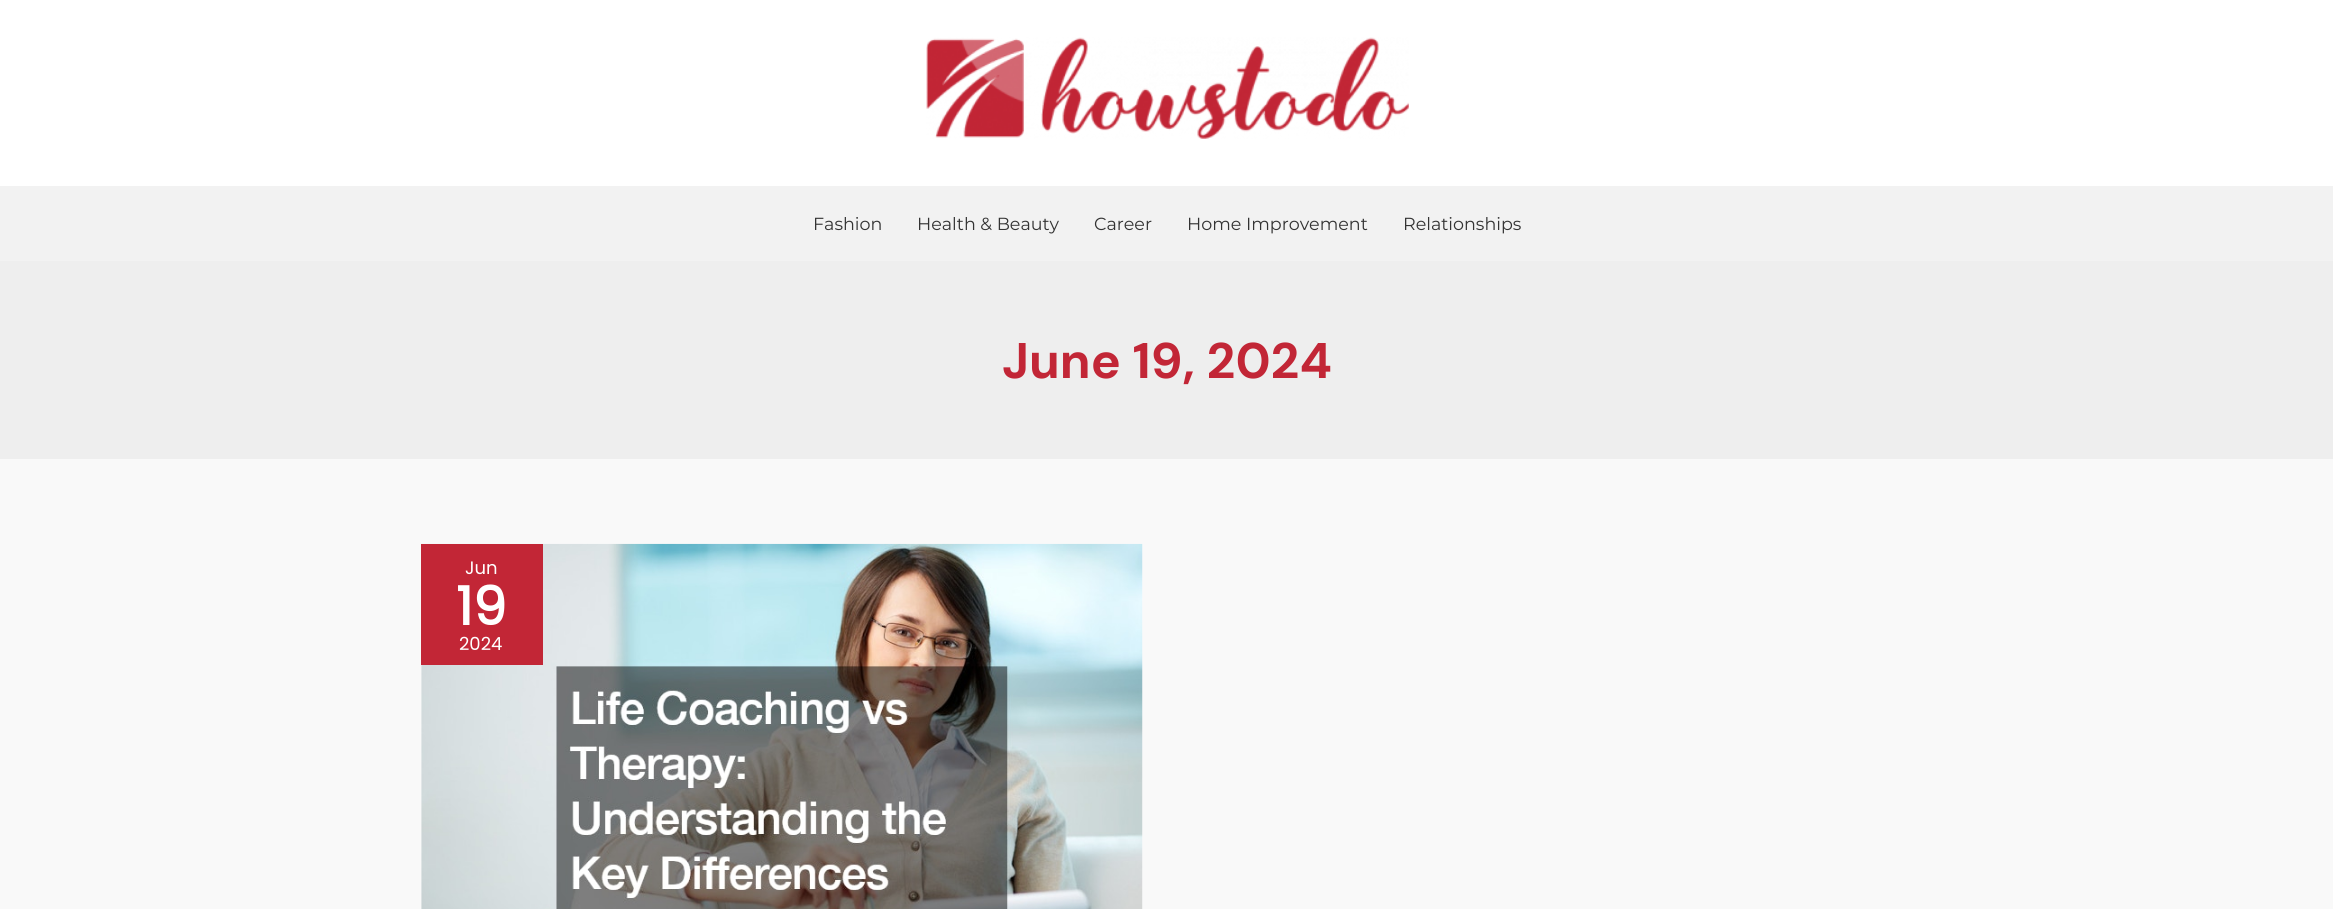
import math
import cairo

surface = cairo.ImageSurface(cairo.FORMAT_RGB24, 2333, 909)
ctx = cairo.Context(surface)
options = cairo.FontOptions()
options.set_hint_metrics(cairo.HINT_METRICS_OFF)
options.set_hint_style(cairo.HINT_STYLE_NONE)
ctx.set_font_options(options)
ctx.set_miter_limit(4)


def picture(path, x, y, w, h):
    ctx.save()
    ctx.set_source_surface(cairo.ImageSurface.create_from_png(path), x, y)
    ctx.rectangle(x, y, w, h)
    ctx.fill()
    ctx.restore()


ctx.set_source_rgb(0.976, 0.976, 0.976)
ctx.paint()
ctx.set_source_rgb(1, 1, 1)
ctx.rectangle(0, 0, 2333, 186)
ctx.fill()
picture("img1.png", 926, 37, 483, 102)
ctx.set_source_rgb(0.949, 0.949, 0.949)
ctx.rectangle(0, 186, 2333, 75)
ctx.fill()
ctx.select_font_face("Montserrat Thin")
ctx.set_font_size(17.5)
ctx.set_source_rgb(0.2, 0.2, 0.2)
ctx.move_to(813, 230)
ctx.show_text("Fashion")
ctx.move_to(917, 230)
ctx.show_text("Health & Beauty")
ctx.move_to(1094, 230)
ctx.show_text("Career")
ctx.move_to(1187, 230)
ctx.show_text("Home Improvement")
ctx.move_to(1403, 230)
ctx.show_text("Relationships")
ctx.set_source_rgb(0.933, 0.933, 0.933)
ctx.rectangle(0, 261, 2333, 198)
ctx.fill()
ctx.select_font_face("DM Sans", cairo.FONT_SLANT_NORMAL, cairo.FONT_WEIGHT_BOLD)
ctx.set_font_size(50)
ctx.set_source_rgb(0.761, 0.149, 0.212)
ctx.move_to(1002, 378)
ctx.show_text("June 19, 2024")
picture("img2.png", 421, 543, 722, 366)
ctx.rectangle(421, 544, 122, 121)
ctx.fill()
ctx.select_font_face("Poppins")
ctx.set_font_size(18)
ctx.set_source_rgb(1, 1, 1)
ctx.move_to(465, 574)
ctx.show_text("Jun")
ctx.select_font_face("Poppins", cairo.FONT_SLANT_NORMAL, cairo.FONT_WEIGHT_BOLD)
ctx.set_font_size(53)
ctx.move_to(456, 625)
ctx.show_text("19")
ctx.select_font_face("Poppins")
ctx.set_font_size(18)
ctx.move_to(459, 650)
ctx.show_text("2024")
surface.write_to_png("page.png")
